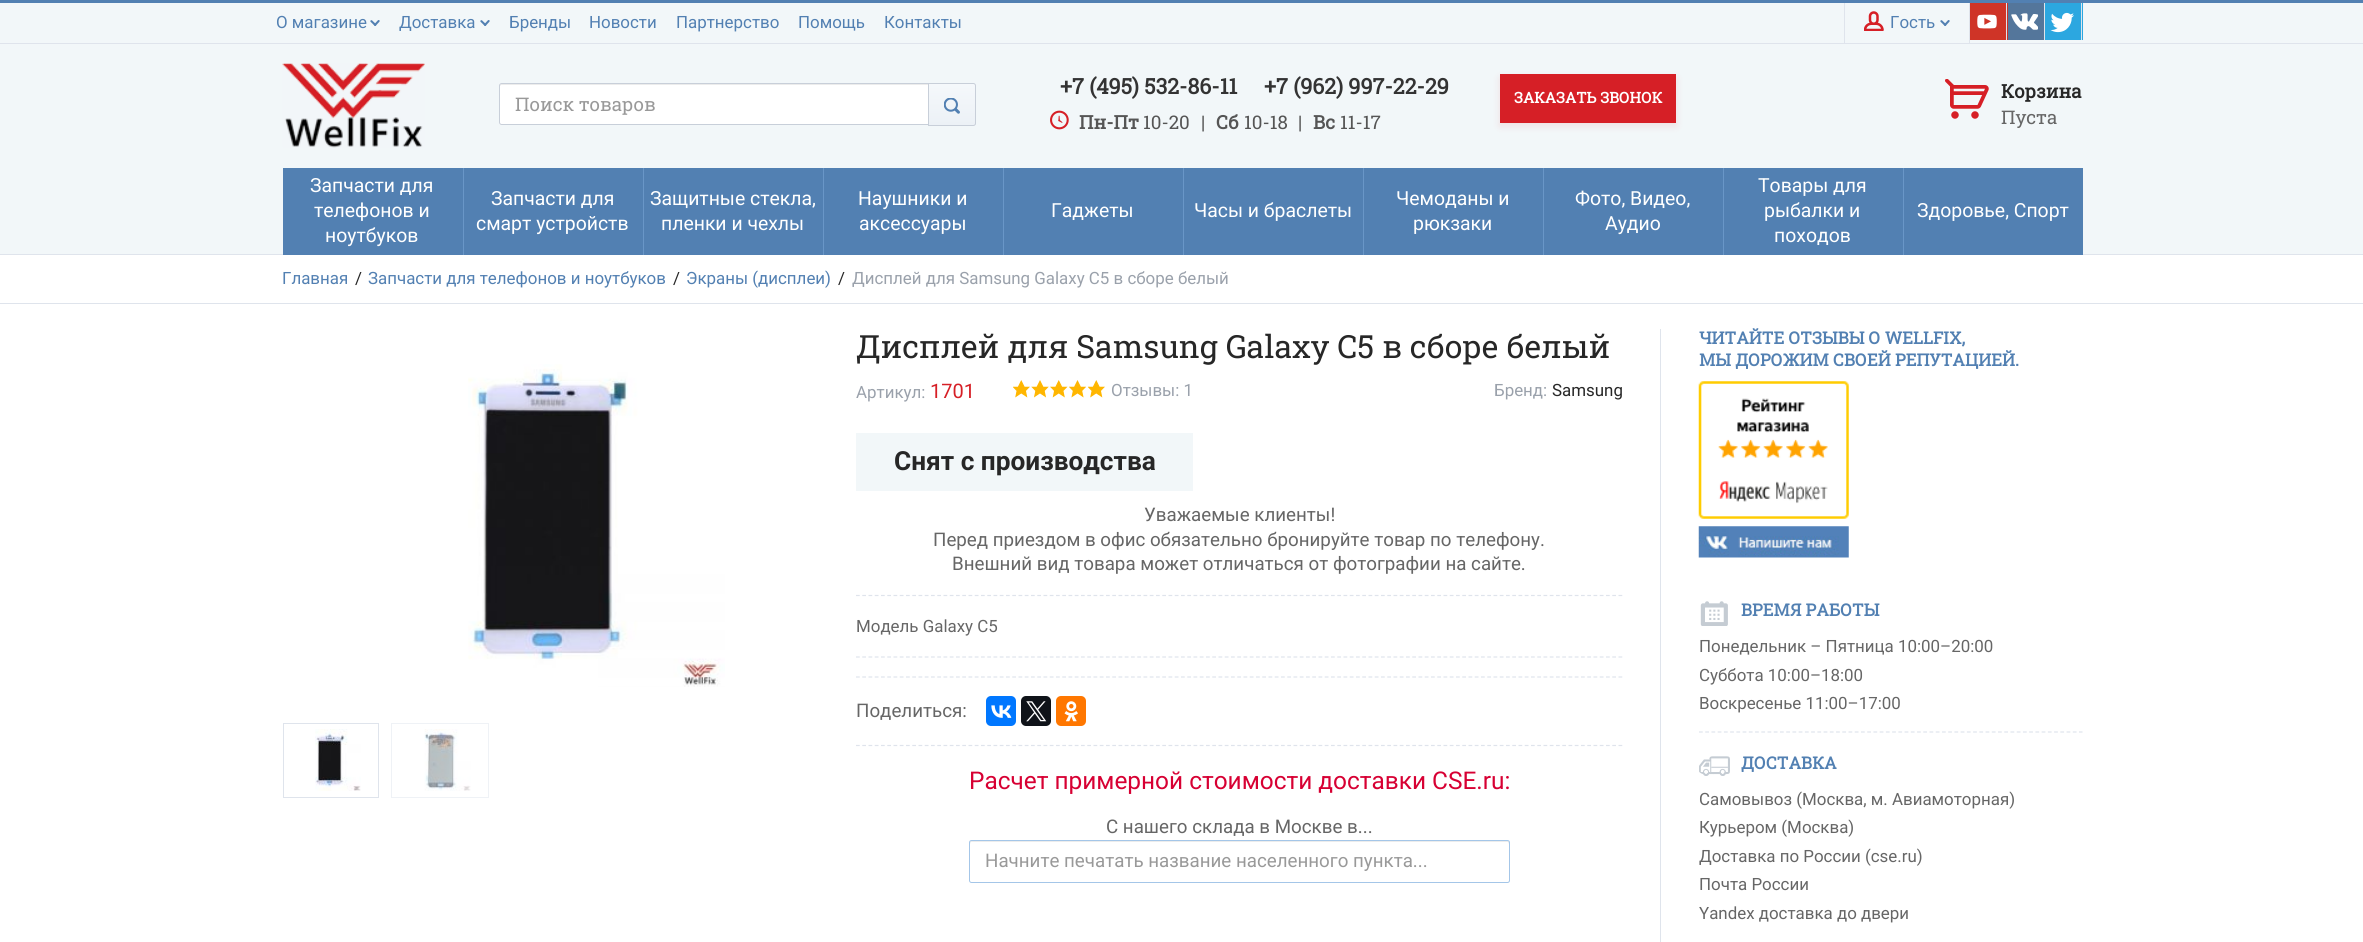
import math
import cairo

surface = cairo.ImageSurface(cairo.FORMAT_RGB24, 2363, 942)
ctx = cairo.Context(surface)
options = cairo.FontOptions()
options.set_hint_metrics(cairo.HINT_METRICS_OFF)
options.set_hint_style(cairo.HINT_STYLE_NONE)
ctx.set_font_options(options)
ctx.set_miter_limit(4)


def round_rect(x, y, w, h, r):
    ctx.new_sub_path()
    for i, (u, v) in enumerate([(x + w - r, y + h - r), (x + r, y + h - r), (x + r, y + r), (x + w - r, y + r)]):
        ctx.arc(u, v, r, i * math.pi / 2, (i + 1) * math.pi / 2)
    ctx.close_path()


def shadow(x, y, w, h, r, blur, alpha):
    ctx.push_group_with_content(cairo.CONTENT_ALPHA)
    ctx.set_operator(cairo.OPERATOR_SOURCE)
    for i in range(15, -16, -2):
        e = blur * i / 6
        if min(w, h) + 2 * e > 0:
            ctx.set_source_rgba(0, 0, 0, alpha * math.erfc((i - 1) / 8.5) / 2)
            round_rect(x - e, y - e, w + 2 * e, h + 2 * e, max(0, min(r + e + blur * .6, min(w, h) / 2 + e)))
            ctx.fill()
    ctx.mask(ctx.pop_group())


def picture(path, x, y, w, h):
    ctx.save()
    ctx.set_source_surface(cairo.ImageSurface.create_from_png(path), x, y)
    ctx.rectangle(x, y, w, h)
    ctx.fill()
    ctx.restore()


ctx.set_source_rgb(1, 1, 1)
ctx.paint()
ctx.set_source_rgb(0.949, 0.965, 0.976)
ctx.rectangle(0, 3, 2363, 251)
ctx.fill()
ctx.set_source_rgb(0.875, 0.894, 0.922)
ctx.rectangle(0, 254, 2363, 1)
ctx.fill()
ctx.set_source_rgb(0.322, 0.502, 0.698)
ctx.rectangle(0, 0, 2363, 3)
ctx.fill()
ctx.set_source_rgb(0.875, 0.894, 0.922)
ctx.rectangle(0, 43, 2363, 1)
ctx.fill()
ctx.select_font_face("Roboto")
ctx.set_font_size(16.9)
ctx.set_source_rgb(0.322, 0.502, 0.698)
ctx.move_to(276, 28)
ctx.show_text("О магазине")
picture("img1.png", 370, 20, 10, 6)
ctx.move_to(399, 28)
ctx.show_text("Доставка")
picture("img1.png", 480, 20, 10, 6)
ctx.move_to(509, 28)
ctx.show_text("Бренды")
ctx.move_to(589, 28)
ctx.show_text("Новости")
ctx.move_to(676, 28)
ctx.show_text("Партнерство")
ctx.move_to(798, 28)
ctx.show_text("Помощь")
ctx.move_to(884, 28)
ctx.show_text("Контакты")
ctx.set_source_rgb(0.875, 0.894, 0.922)
ctx.rectangle(1969, 3, 1, 40)
ctx.fill()
ctx.rectangle(1844, 3, 1, 40)
ctx.fill()
picture("img2.png", 1864, 11, 20, 20)
ctx.set_source_rgb(0.322, 0.502, 0.698)
ctx.move_to(1890, 28)
ctx.show_text("Гость")
picture("img1.png", 1940, 20, 10, 6)
ctx.set_source_rgb(0.812, 0.204, 0.153)
ctx.rectangle(1970, 3, 38, 37)
ctx.fill()
ctx.set_source_rgb(0.875, 0.894, 0.922)
ctx.rectangle(2006, 3, 1, 37)
ctx.fill()
picture("img3.png", 1977, 14, 20, 15)
ctx.set_source_rgb(0.329, 0.463, 0.608)
ctx.rectangle(2008, 3, 36, 37)
ctx.fill()
ctx.set_source_rgb(0.875, 0.894, 0.922)
ctx.rectangle(2044, 3, 1, 37)
ctx.fill()
picture("img4.png", 2011, 13, 27, 17)
ctx.set_source_rgb(0.173, 0.655, 0.878)
ctx.rectangle(2045, 3, 38, 37)
ctx.fill()
ctx.set_source_rgb(0.875, 0.894, 0.922)
ctx.rectangle(2081, 3, 1, 37)
ctx.fill()
picture("img5.png", 2050, 12, 24, 21)
picture("img6.png", 282, 63, 143, 85)
ctx.set_source_rgb(1, 1, 1)
ctx.new_path()
ctx.move_to(501.5, 83)
ctx.line_to(929, 83)
ctx.line_to(929, 125)
ctx.line_to(501.5, 125)
ctx.curve_to(500, 125, 499, 124, 499, 122.5)
ctx.line_to(499, 85.5)
ctx.curve_to(499, 84, 500, 83, 501.5, 83)
ctx.close_path()
ctx.fill()
ctx.set_source_rgb(0.925, 0.925, 0.925)
ctx.new_path()
ctx.move_to(501, 85)
ctx.line_to(928, 85)
ctx.line_to(928, 84)
ctx.line_to(501, 84)
ctx.line_to(500, 85)
ctx.line_to(500, 86)
ctx.close_path()
ctx.fill()
ctx.new_path()
ctx.move_to(501.5, 83.5)
ctx.line_to(928.5, 83.5)
ctx.line_to(928.5, 124.5)
ctx.line_to(501.5, 124.5)
ctx.curve_to(500.5, 124.5, 499.5, 123.5, 499.5, 122.5)
ctx.line_to(499.5, 85.5)
ctx.curve_to(499.5, 84.5, 500.5, 83.5, 501.5, 83.5)
ctx.close_path()
ctx.set_source_rgb(0.784, 0.812, 0.851)
ctx.set_line_width(1)
ctx.stroke()
ctx.select_font_face("Roboto Slab")
ctx.set_font_size(18.75)
ctx.set_source_rgb(0.6, 0.6, 0.6)
ctx.move_to(515, 111)
ctx.show_text("Поиск товаров")
gradient = cairo.LinearGradient(952, 84, 952, 125)
gradient.add_color_stop_rgba(0, 0.961, 0.973, 0.984, 1)
gradient.add_color_stop_rgba(1, 0.925, 0.945, 0.965, 1)
ctx.set_source(gradient)
ctx.rectangle(929, 84, 47, 41)
ctx.fill()
ctx.new_path()
ctx.move_to(928.5, 83.5)
ctx.line_to(973.5, 83.5)
ctx.curve_to(974.5, 83.5, 975.5, 84.5, 975.5, 85.5)
ctx.line_to(975.5, 123.5)
ctx.curve_to(975.5, 124.5, 974.5, 125.5, 973.5, 125.5)
ctx.line_to(928.5, 125.5)
ctx.close_path()
ctx.set_source_rgb(0.784, 0.812, 0.851)
ctx.stroke()
picture("img7.png", 944, 98, 16, 16)
ctx.select_font_face("Roboto Slab", cairo.FONT_SLANT_NORMAL, cairo.FONT_WEIGHT_BOLD)
ctx.set_font_size(21.5)
ctx.set_source_rgb(0.2, 0.2, 0.2)
ctx.move_to(1060, 94)
ctx.show_text("+7 (495) 532-86-11")
ctx.move_to(1264, 94)
ctx.show_text("+7 (962) 997-22-29")
picture("img8.png", 1050, 110, 19, 20)
ctx.set_font_size(18.75)
ctx.set_source_rgb(0.333, 0.333, 0.333)
ctx.move_to(1079, 129)
ctx.show_text("Пн-Пт")
ctx.select_font_face("Roboto Slab")
ctx.move_to(1143, 129)
ctx.show_text("10-20")
ctx.move_to(1201, 129)
ctx.show_text("|")
ctx.select_font_face("Roboto Slab", cairo.FONT_SLANT_NORMAL, cairo.FONT_WEIGHT_BOLD)
ctx.move_to(1216, 129)
ctx.show_text("Сб")
ctx.select_font_face("Roboto Slab")
ctx.move_to(1244, 129)
ctx.show_text("10-18")
ctx.move_to(1298, 129)
ctx.show_text("|")
ctx.select_font_face("Roboto Slab", cairo.FONT_SLANT_NORMAL, cairo.FONT_WEIGHT_BOLD)
ctx.move_to(1313, 129)
ctx.show_text("Вс")
ctx.select_font_face("Roboto Slab")
ctx.move_to(1340, 129)
ctx.show_text("11-17")
ctx.set_source_rgb(0.839, 0.122, 0.149)
shadow(1500, 78, 176, 48, 0, 4, 0.11)
ctx.set_source_rgb(0.839, 0.122, 0.149)
ctx.rectangle(1500, 74, 176, 49)
ctx.fill()
ctx.select_font_face("Roboto Slab", cairo.FONT_SLANT_NORMAL, cairo.FONT_WEIGHT_BOLD)
ctx.set_font_size(15)
ctx.set_source_rgb(1, 1, 1)
ctx.move_to(1514, 103)
ctx.show_text("ЗАКАЗАТЬ ЗВОНОК")
picture("img9.png", 1945, 79, 44, 40)
ctx.set_font_size(18.75)
ctx.set_source_rgb(0.153, 0.153, 0.153)
ctx.move_to(2001, 98)
ctx.show_text("Корзина")
ctx.select_font_face("Roboto Slab")
ctx.set_source_rgb(0.4, 0.4, 0.4)
ctx.move_to(2001, 124)
ctx.show_text("Пуста")
ctx.set_source_rgb(0.322, 0.502, 0.698)
ctx.rectangle(283, 168, 180, 87)
ctx.fill()
ctx.select_font_face("Roboto")
ctx.set_font_size(19.4)
ctx.set_source_rgb(1, 1, 1)
ctx.move_to(310, 192)
ctx.show_text("Запчасти для")
ctx.move_to(314, 217)
ctx.show_text("телефонов и")
ctx.move_to(325, 242)
ctx.show_text("ноутбуков")
ctx.set_source_rgb(0.322, 0.502, 0.698)
ctx.rectangle(464, 168, 179, 87)
ctx.fill()
ctx.set_source_rgb(0.412, 0.588, 0.78)
ctx.rectangle(463, 168, 1, 87)
ctx.fill()
ctx.set_source_rgb(1, 1, 1)
ctx.move_to(491, 205)
ctx.show_text("Запчасти для")
ctx.move_to(476, 230)
ctx.show_text("смарт устройств")
ctx.set_source_rgb(0.322, 0.502, 0.698)
ctx.rectangle(644, 168, 179, 87)
ctx.fill()
ctx.set_source_rgb(0.412, 0.588, 0.78)
ctx.rectangle(643, 168, 1, 87)
ctx.fill()
ctx.set_source_rgb(1, 1, 1)
ctx.move_to(650, 205)
ctx.show_text("Защитные стекла,")
ctx.move_to(661, 230)
ctx.show_text("пленки и чехлы")
ctx.set_source_rgb(0.322, 0.502, 0.698)
ctx.rectangle(824, 168, 179, 87)
ctx.fill()
ctx.set_source_rgb(0.412, 0.588, 0.78)
ctx.rectangle(823, 168, 1, 87)
ctx.fill()
ctx.set_source_rgb(1, 1, 1)
ctx.move_to(858, 205)
ctx.show_text("Наушники и")
ctx.move_to(859, 230)
ctx.show_text("аксессуары")
ctx.set_source_rgb(0.322, 0.502, 0.698)
ctx.rectangle(1004, 168, 179, 87)
ctx.fill()
ctx.set_source_rgb(0.412, 0.588, 0.78)
ctx.rectangle(1003, 168, 1, 87)
ctx.fill()
ctx.set_source_rgb(1, 1, 1)
ctx.move_to(1051, 217)
ctx.show_text("Гаджеты")
ctx.set_source_rgb(0.322, 0.502, 0.698)
ctx.rectangle(1184, 168, 179, 87)
ctx.fill()
ctx.set_source_rgb(0.412, 0.588, 0.78)
ctx.rectangle(1183, 168, 1, 87)
ctx.fill()
ctx.set_source_rgb(1, 1, 1)
ctx.move_to(1194, 217)
ctx.show_text("Часы и браслеты")
ctx.set_source_rgb(0.322, 0.502, 0.698)
ctx.rectangle(1364, 168, 179, 87)
ctx.fill()
ctx.set_source_rgb(0.412, 0.588, 0.78)
ctx.rectangle(1363, 168, 1, 87)
ctx.fill()
ctx.set_source_rgb(1, 1, 1)
ctx.move_to(1396, 205)
ctx.show_text("Чемоданы и")
ctx.move_to(1413, 230)
ctx.show_text("рюкзаки")
ctx.set_source_rgb(0.322, 0.502, 0.698)
ctx.rectangle(1544, 168, 179, 87)
ctx.fill()
ctx.set_source_rgb(0.412, 0.588, 0.78)
ctx.rectangle(1543, 168, 1, 87)
ctx.fill()
ctx.set_source_rgb(1, 1, 1)
ctx.move_to(1575, 205)
ctx.show_text("Фото, Видео,")
ctx.move_to(1605, 230)
ctx.show_text("Аудио")
ctx.set_source_rgb(0.322, 0.502, 0.698)
ctx.rectangle(1724, 168, 179, 87)
ctx.fill()
ctx.set_source_rgb(0.412, 0.588, 0.78)
ctx.rectangle(1723, 168, 1, 87)
ctx.fill()
ctx.set_source_rgb(1, 1, 1)
ctx.move_to(1758, 192)
ctx.show_text("Товары для")
ctx.move_to(1764, 217)
ctx.show_text("рыбалки и")
ctx.move_to(1774, 242)
ctx.show_text("походов")
ctx.set_source_rgb(0.322, 0.502, 0.698)
ctx.rectangle(1904, 168, 179, 87)
ctx.fill()
ctx.set_source_rgb(0.412, 0.588, 0.78)
ctx.rectangle(1903, 168, 1, 87)
ctx.fill()
ctx.set_source_rgb(1, 1, 1)
ctx.move_to(1917, 217)
ctx.show_text("Здоровье, Спорт")
ctx.set_source_rgb(0.875, 0.894, 0.922)
ctx.rectangle(0, 303, 2363, 1)
ctx.fill()
ctx.set_font_size(16.9)
ctx.set_source_rgb(0.322, 0.502, 0.698)
ctx.move_to(282, 284)
ctx.show_text("Главная")
ctx.set_source_rgb(0.153, 0.153, 0.153)
ctx.move_to(355, 284)
ctx.show_text("/")
ctx.set_source_rgb(0.322, 0.502, 0.698)
ctx.move_to(368, 284)
ctx.show_text("Запчасти для телефонов и ноутбуков")
ctx.set_source_rgb(0.153, 0.153, 0.153)
ctx.move_to(673, 284)
ctx.show_text("/")
ctx.set_source_rgb(0.322, 0.502, 0.698)
ctx.move_to(686, 284)
ctx.show_text("Экраны (дисплеи)")
ctx.set_source_rgb(0.153, 0.153, 0.153)
ctx.move_to(838, 284)
ctx.show_text("/")
ctx.set_source_rgb(0.604, 0.631, 0.671)
ctx.move_to(852, 284)
ctx.show_text("Дисплей для Samsung Galaxy C5 в сборе белый")
picture("img10.png", 468, 364, 257, 323)
ctx.rectangle(283.5, 723.5, 95, 74)
ctx.set_source_rgb(0.875, 0.894, 0.922)
ctx.stroke()
picture("img11.png", 315, 729, 46, 62)
ctx.rectangle(391.5, 723.5, 97, 74)
ctx.set_source_rgb(0.937, 0.949, 0.961)
ctx.stroke()
picture("img12.png", 424, 729, 47, 62)
ctx.select_font_face("Roboto Slab")
ctx.set_font_size(31.9)
ctx.set_source_rgb(0.153, 0.153, 0.153)
ctx.move_to(856, 358)
ctx.show_text("Дисплей для Samsung Galaxy C5 в сборе белый")
ctx.select_font_face("Roboto")
ctx.set_font_size(16.9)
ctx.set_source_rgb(0.604, 0.631, 0.671)
ctx.move_to(856, 398)
ctx.show_text("Артикул:")
ctx.set_font_size(20)
ctx.set_source_rgb(0.839, 0.122, 0.149)
ctx.move_to(930, 398)
ctx.show_text("1701")
picture("img13.png", 1013, 380, 17, 18)
picture("img14.png", 1031, 380, 18, 18)
picture("img15.png", 1050, 380, 18, 18)
picture("img16.png", 1069, 380, 17, 18)
picture("img13.png", 1088, 380, 17, 18)
ctx.set_font_size(16.9)
ctx.set_source_rgb(0.604, 0.631, 0.671)
ctx.move_to(1111, 396)
ctx.show_text("Отзывы: 1")
ctx.move_to(1494, 396)
ctx.show_text("Бренд:")
ctx.set_source_rgb(0.153, 0.153, 0.153)
ctx.move_to(1552, 396)
ctx.show_text("Samsung")
ctx.set_source_rgb(0.949, 0.965, 0.976)
ctx.rectangle(856, 433, 337, 58)
ctx.fill()
ctx.select_font_face("Roboto", cairo.FONT_SLANT_NORMAL, cairo.FONT_WEIGHT_BOLD)
ctx.set_font_size(26.25)
ctx.set_source_rgb(0.153, 0.153, 0.153)
ctx.move_to(894, 470)
ctx.show_text("Снят с производства")
ctx.select_font_face("Roboto")
ctx.set_font_size(18.75)
ctx.set_source_rgb(0.4, 0.4, 0.4)
ctx.move_to(1144, 521)
ctx.show_text("Уважаемые клиенты!")
ctx.move_to(933, 546)
ctx.show_text("Перед приездом в офис обязательно бронируйте товар по телефону.")
ctx.move_to(952, 570)
ctx.show_text("Внешний вид товара может отличаться от фотографии на сайте.")
ctx.new_path()
ctx.move_to(856, 595.5)
ctx.line_to(1622.5, 595.5)
ctx.set_source_rgb(0.875, 0.894, 0.922)
ctx.set_line_width(1.2)
ctx.set_dash([3.75, 2.5])
ctx.stroke()
ctx.new_path()
ctx.move_to(856, 657)
ctx.line_to(1622.5, 657)
ctx.stroke()
ctx.set_font_size(16.9)
ctx.set_source_rgb(0.4, 0.4, 0.4)
ctx.move_to(856, 632)
ctx.show_text("Модель Galaxy C5")
ctx.new_path()
ctx.move_to(856, 677)
ctx.line_to(1622.5, 677)
ctx.set_source_rgb(0.875, 0.894, 0.922)
ctx.stroke()
ctx.new_path()
ctx.move_to(856, 745.5)
ctx.line_to(1622.5, 745.5)
ctx.stroke()
ctx.set_font_size(18.75)
ctx.set_source_rgb(0.4, 0.4, 0.4)
ctx.move_to(856, 717)
ctx.show_text("Поделиться:")
ctx.set_source_rgb(0, 0.467, 1)
round_rect(986, 696, 30, 30, 5)
ctx.fill()
picture("img17.png", 991, 705, 21, 13)
ctx.set_source_rgb(0.059, 0.078, 0.098)
round_rect(1021, 696, 30, 30, 5)
ctx.fill()
picture("img18.png", 1026, 701, 21, 21)
ctx.set_source_rgb(1, 0.467, 0)
round_rect(1056, 696, 30, 30, 5)
ctx.fill()
picture("img19.png", 1064, 701, 14, 21)
ctx.set_font_size(24.4)
ctx.set_source_rgb(0.843, 0, 0.2)
ctx.move_to(969, 789)
ctx.show_text("Расчет примерной стоимости доставки CSE.ru:")
ctx.set_font_size(18.75)
ctx.set_source_rgb(0.4, 0.4, 0.4)
ctx.move_to(1106, 833)
ctx.show_text("С нашего склада в Москве в...")
ctx.set_source_rgb(0.925, 0.925, 0.925)
ctx.new_path()
ctx.move_to(971, 842)
ctx.line_to(1508, 842)
ctx.line_to(1509, 844)
ctx.line_to(1509, 841)
ctx.line_to(1508, 841)
ctx.line_to(971, 841)
ctx.curve_to(970, 841, 970, 843, 970, 844)
ctx.close_path()
ctx.fill()
round_rect(969.5, 840.5, 540, 42, 2)
ctx.set_source_rgb(0.643, 0.776, 0.91)
ctx.set_line_width(1)
ctx.set_dash([])
ctx.stroke()
ctx.set_source_rgb(0.6, 0.6, 0.6)
ctx.move_to(985, 867)
ctx.show_text("Начните печатать название населенного пункта...")
ctx.set_source_rgb(0.875, 0.894, 0.922)
ctx.rectangle(1660, 329, 1, 613)
ctx.fill()
ctx.select_font_face("Roboto Slab", cairo.FONT_SLANT_NORMAL, cairo.FONT_WEIGHT_BOLD)
ctx.set_font_size(16.9)
ctx.set_source_rgb(0.322, 0.502, 0.698)
ctx.move_to(1699, 344)
ctx.show_text("ЧИТАЙТЕ ОТЗЫВЫ О WELLFIX,")
ctx.move_to(1699, 366)
ctx.show_text("МЫ ДОРОЖИМ СВОЕЙ РЕПУТАЦИЕЙ.")
picture("img20.png", 1698, 381, 151, 138)
picture("img21.png", 1698, 526, 151, 32)
ctx.new_path()
ctx.move_to(1699, 732)
ctx.line_to(2082.5, 732)
ctx.set_source_rgb(0.875, 0.894, 0.922)
ctx.set_line_width(1.2)
ctx.set_dash([3.75, 2.48])
ctx.stroke()
picture("img22.png", 1700, 601, 28, 25)
ctx.set_source_rgb(0.322, 0.502, 0.698)
ctx.move_to(1741, 616)
ctx.show_text("ВРЕМЯ РАБОТЫ")
ctx.select_font_face("Roboto")
ctx.set_source_rgb(0.4, 0.4, 0.4)
ctx.move_to(1699, 652)
ctx.show_text("Понедельник – Пятница 10:00–20:00")
ctx.move_to(1699, 681)
ctx.show_text("Суббота 10:00–18:00")
ctx.move_to(1699, 709)
ctx.show_text("Воскресенье 11:00–17:00")
picture("img23.png", 1699, 756, 31, 20)
ctx.select_font_face("Roboto Slab", cairo.FONT_SLANT_NORMAL, cairo.FONT_WEIGHT_BOLD)
ctx.set_source_rgb(0.322, 0.502, 0.698)
ctx.move_to(1741, 769)
ctx.show_text("ДОСТАВКА")
ctx.select_font_face("Roboto")
ctx.set_source_rgb(0.4, 0.4, 0.4)
ctx.move_to(1699, 805)
ctx.show_text("Самовывоз (Москва, м. Авиамоторная)")
ctx.move_to(1699, 833)
ctx.show_text("Курьером (Москва)")
ctx.move_to(1699, 862)
ctx.show_text("Доставка по России (cse.ru)")
ctx.move_to(1699, 890)
ctx.show_text("Почта России")
ctx.move_to(1699, 919)
ctx.show_text("Yandex доставка до двери")
surface.write_to_png("page.png")
